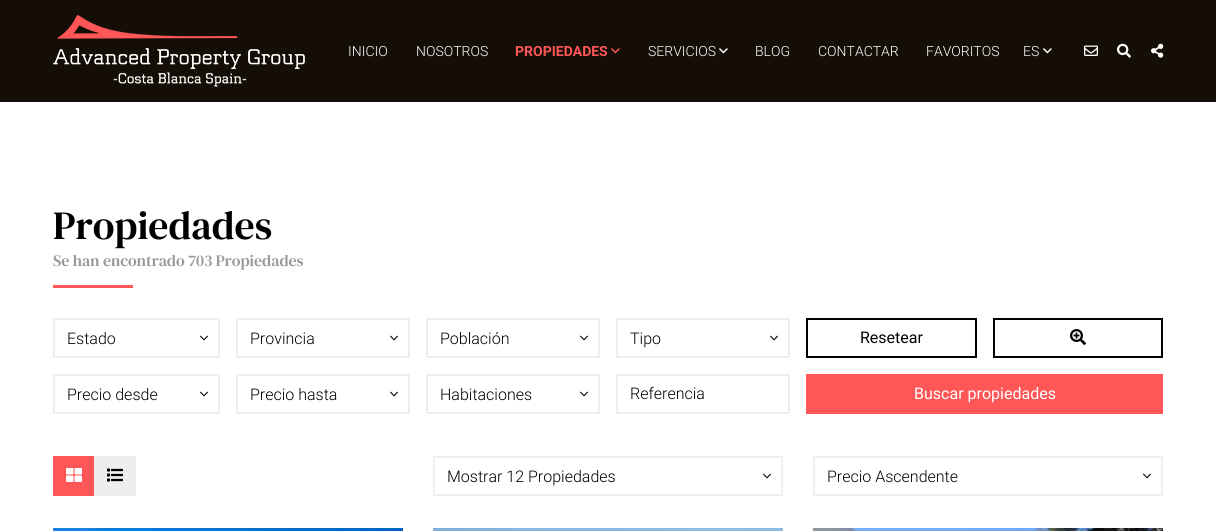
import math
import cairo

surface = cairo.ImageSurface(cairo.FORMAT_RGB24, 1216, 531)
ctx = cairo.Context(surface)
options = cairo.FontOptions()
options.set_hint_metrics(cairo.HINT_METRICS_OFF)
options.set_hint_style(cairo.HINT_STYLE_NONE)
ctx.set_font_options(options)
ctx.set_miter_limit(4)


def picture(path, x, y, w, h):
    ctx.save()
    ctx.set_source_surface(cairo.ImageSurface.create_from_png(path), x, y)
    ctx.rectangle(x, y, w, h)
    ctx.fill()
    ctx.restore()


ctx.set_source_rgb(1, 1, 1)
ctx.paint()
ctx.set_source_rgb(0.082, 0.055, 0.027)
ctx.rectangle(0, 0, 1216, 102)
ctx.fill()
picture("img1.png", 53, 15, 252, 72)
ctx.select_font_face("Roboto Light")
ctx.set_font_size(14)
ctx.set_source_rgb(1, 1, 1)
ctx.move_to(348, 56)
ctx.show_text("INICIO")
ctx.move_to(416, 56)
ctx.show_text("NOSOTROS")
ctx.select_font_face("Roboto", cairo.FONT_SLANT_NORMAL, cairo.FONT_WEIGHT_BOLD)
ctx.set_source_rgb(1, 0.341, 0.345)
ctx.move_to(515, 56)
ctx.show_text("PROPIEDADES")
picture("img2.png", 611, 48, 9, 6)
ctx.select_font_face("Roboto Light")
ctx.set_source_rgb(1, 1, 1)
ctx.move_to(648, 56)
ctx.show_text("SERVICIOS")
picture("img3.png", 719, 48, 9, 6)
ctx.move_to(755, 56)
ctx.show_text("BLOG")
ctx.move_to(818, 56)
ctx.show_text("CONTACTAR")
ctx.move_to(926, 56)
ctx.show_text("FAVORITOS")
ctx.move_to(1023, 56)
ctx.show_text("ES")
picture("img3.png", 1043, 48, 9, 6)
picture("img4.png", 1084, 45, 14, 11)
picture("img5.png", 1117, 43, 14, 15)
picture("img6.png", 1151, 43, 13, 15)
ctx.select_font_face("DM Serif Text")
ctx.set_font_size(40)
ctx.set_source_rgb(0, 0, 0)
ctx.move_to(53, 239)
ctx.show_text("Propiedades")
ctx.set_font_size(16)
ctx.set_source_rgb(0.6, 0.6, 0.6)
ctx.move_to(53, 266)
ctx.show_text("Se han encontrado 703 Propiedades")
ctx.set_source_rgb(1, 0.341, 0.345)
ctx.rectangle(53, 285, 80, 3)
ctx.fill()
ctx.rectangle(54, 319, 165, 38)
ctx.set_source_rgb(0.925, 0.933, 0.937)
ctx.stroke()
ctx.select_font_face("Roboto Light")
ctx.set_source_rgb(0, 0, 0)
ctx.move_to(67, 344)
ctx.show_text("Estado")
picture("img7.png", 200, 335, 8, 6)
ctx.rectangle(237, 319, 172, 38)
ctx.set_source_rgb(0.925, 0.933, 0.937)
ctx.stroke()
ctx.set_source_rgb(0, 0, 0)
ctx.move_to(250, 344)
ctx.show_text("Provincia")
picture("img7.png", 390, 335, 8, 6)
ctx.rectangle(427, 319, 172, 38)
ctx.set_source_rgb(0.925, 0.933, 0.937)
ctx.stroke()
ctx.set_source_rgb(0, 0, 0)
ctx.move_to(440, 344)
ctx.show_text("Población")
picture("img7.png", 580, 335, 8, 6)
ctx.rectangle(617, 319, 172, 38)
ctx.set_source_rgb(0.925, 0.933, 0.937)
ctx.stroke()
ctx.set_source_rgb(0, 0, 0)
ctx.move_to(630, 344)
ctx.show_text("Tipo")
picture("img7.png", 770, 335, 8, 6)
ctx.rectangle(54, 375, 165, 38)
ctx.set_source_rgb(0.925, 0.933, 0.937)
ctx.stroke()
ctx.set_source_rgb(0, 0, 0)
ctx.move_to(67, 400)
ctx.show_text("Precio desde")
picture("img7.png", 200, 391, 8, 6)
ctx.rectangle(237, 375, 172, 38)
ctx.set_source_rgb(0.925, 0.933, 0.937)
ctx.stroke()
ctx.set_source_rgb(0, 0, 0)
ctx.move_to(250, 400)
ctx.show_text("Precio hasta")
picture("img7.png", 390, 391, 8, 6)
ctx.rectangle(427, 375, 172, 38)
ctx.set_source_rgb(0.925, 0.933, 0.937)
ctx.stroke()
ctx.set_source_rgb(0, 0, 0)
ctx.move_to(440, 400)
ctx.show_text("Habitaciones")
picture("img7.png", 580, 391, 8, 6)
ctx.rectangle(617, 375, 172, 38)
ctx.set_source_rgb(0.925, 0.933, 0.937)
ctx.stroke()
ctx.set_source_rgb(0, 0, 0)
ctx.move_to(630, 399)
ctx.show_text("Referencia")
ctx.rectangle(807, 319, 169, 38)
ctx.stroke()
ctx.select_font_face("Roboto")
ctx.move_to(860, 343)
ctx.show_text("Resetear")
ctx.rectangle(994, 319, 168, 38)
ctx.stroke()
picture("img8.png", 1070, 329, 16, 16)
ctx.set_source_rgb(1, 0.341, 0.345)
ctx.rectangle(806, 374, 357, 40)
ctx.fill()
ctx.set_source_rgb(1, 1, 1)
ctx.move_to(914, 399)
ctx.show_text("Buscar propiedades")
ctx.set_source_rgb(1, 0.341, 0.345)
ctx.rectangle(53, 456, 41, 40)
ctx.fill()
picture("img9.png", 66, 468, 16, 14)
ctx.set_source_rgb(0.925, 0.933, 0.937)
ctx.rectangle(94, 456, 42, 40)
ctx.fill()
picture("img10.png", 107, 468, 16, 14)
ctx.rectangle(434, 457, 348, 38)
ctx.stroke()
ctx.select_font_face("Roboto Light")
ctx.set_source_rgb(0, 0, 0)
ctx.move_to(447, 482)
ctx.show_text("Mostrar 12 Propiedades")
picture("img7.png", 763, 473, 8, 6)
ctx.rectangle(814, 457, 348, 38)
ctx.set_source_rgb(0.925, 0.933, 0.937)
ctx.stroke()
ctx.set_source_rgb(0, 0, 0)
ctx.move_to(827, 482)
ctx.show_text("Precio Ascendente")
picture("img7.png", 1143, 473, 8, 6)
picture("img11.png", 53, 528, 350, 3)
picture("img12.png", 433, 528, 350, 3)
picture("img13.png", 813, 528, 350, 3)
surface.write_to_png("page.png")
